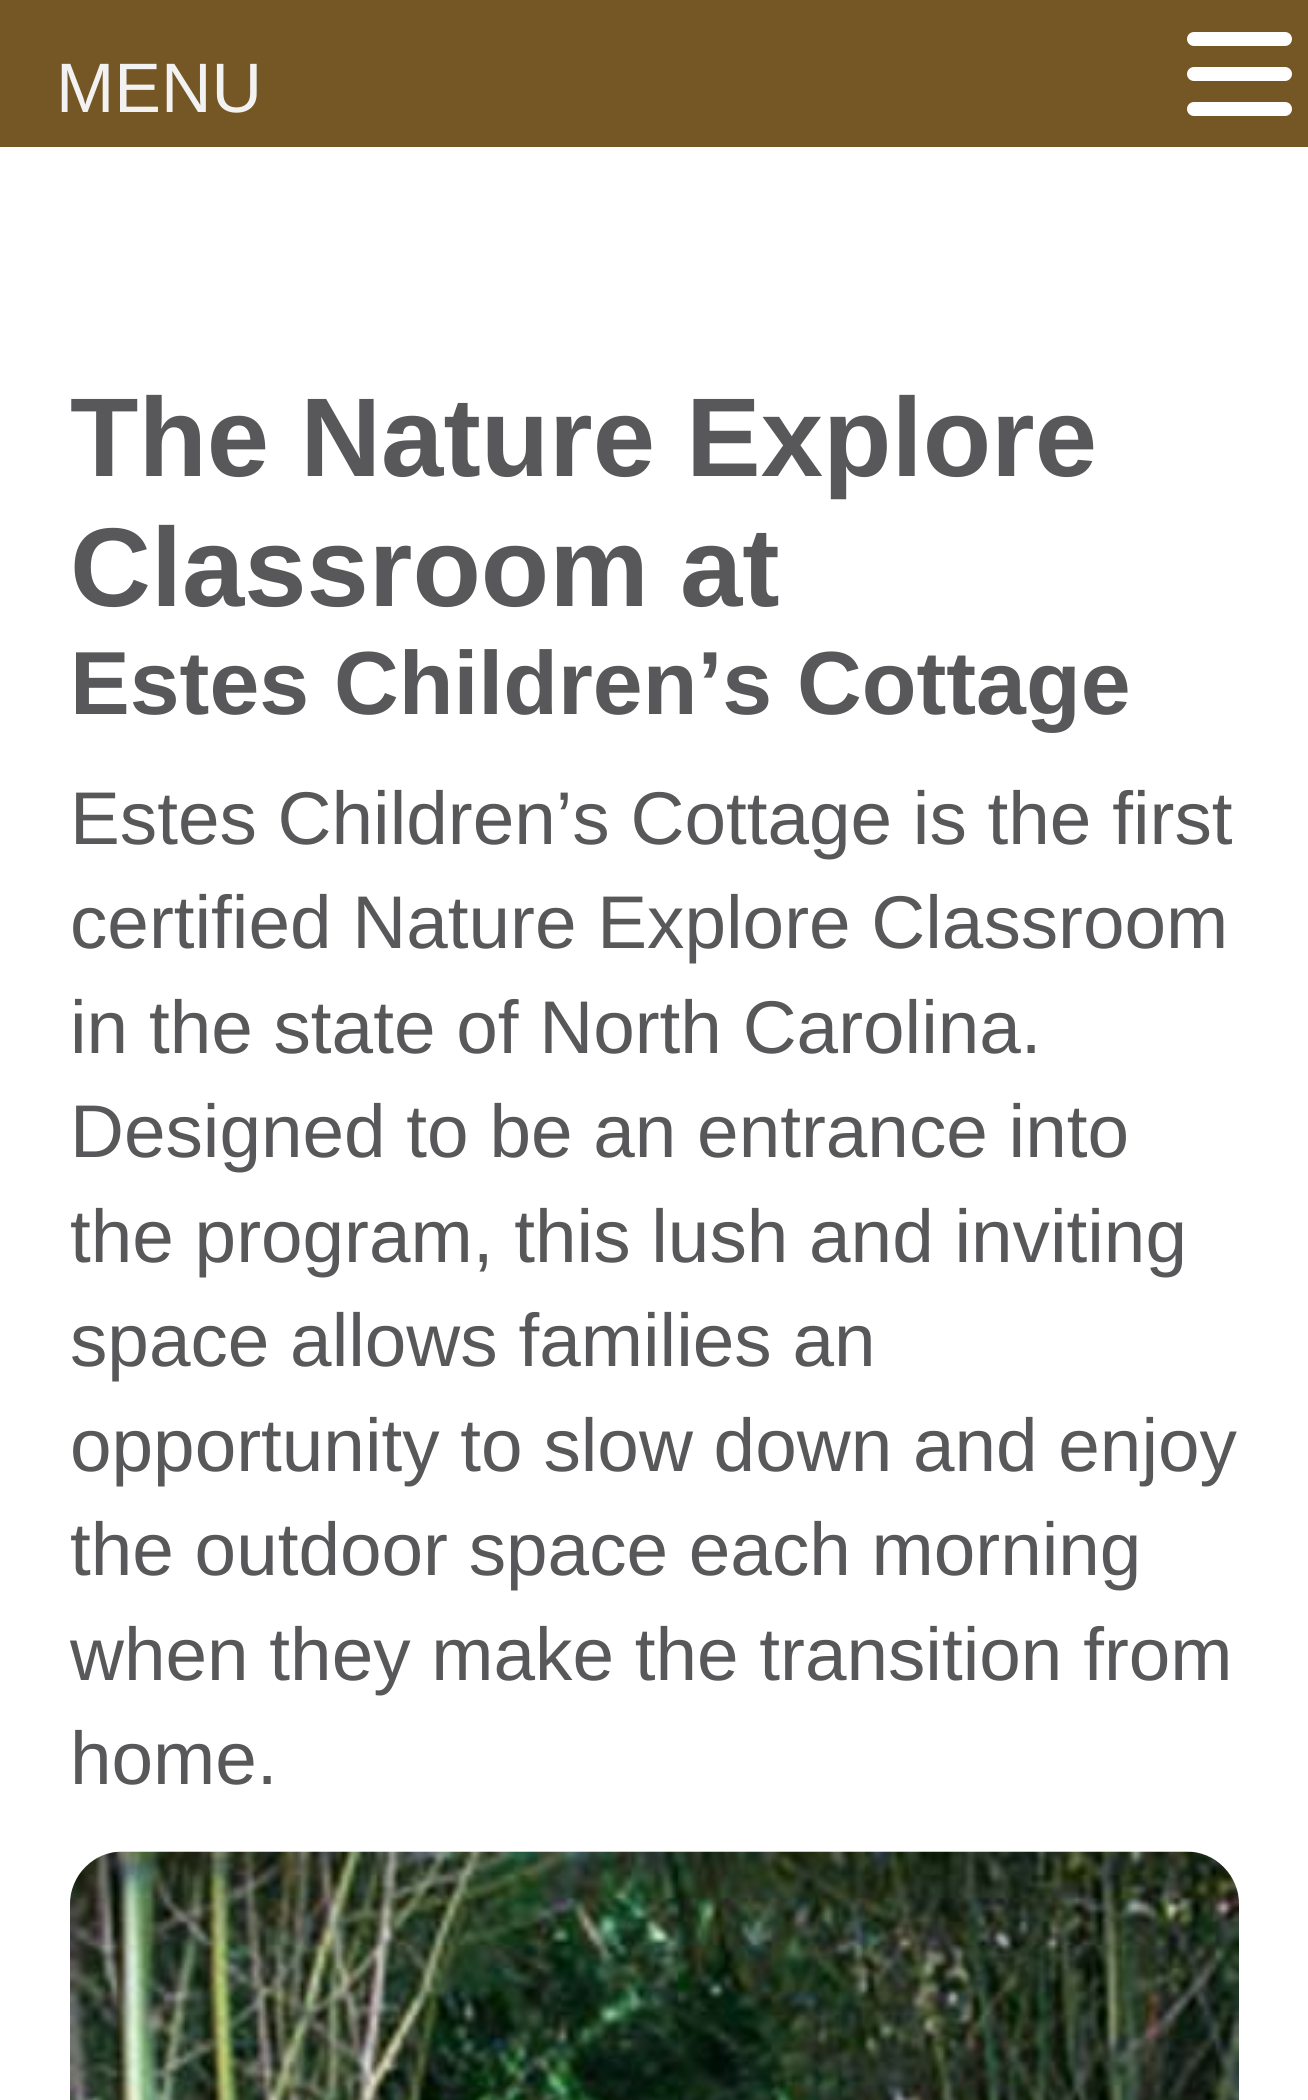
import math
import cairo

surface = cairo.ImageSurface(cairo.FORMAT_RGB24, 1308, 2100)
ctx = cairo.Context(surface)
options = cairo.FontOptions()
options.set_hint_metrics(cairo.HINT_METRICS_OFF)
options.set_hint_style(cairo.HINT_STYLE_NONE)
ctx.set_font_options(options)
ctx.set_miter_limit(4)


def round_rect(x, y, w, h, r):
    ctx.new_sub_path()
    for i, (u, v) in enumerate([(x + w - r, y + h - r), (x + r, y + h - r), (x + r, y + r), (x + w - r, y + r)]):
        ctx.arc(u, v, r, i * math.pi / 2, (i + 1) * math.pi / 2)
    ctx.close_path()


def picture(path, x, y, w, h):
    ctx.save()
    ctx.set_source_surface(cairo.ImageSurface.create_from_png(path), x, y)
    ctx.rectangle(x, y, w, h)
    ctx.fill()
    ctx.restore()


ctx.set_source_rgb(1, 1, 1)
ctx.paint()
ctx.set_source_rgb(0.459, 0.341, 0.145)
ctx.rectangle(0, 0, 1308, 147)
ctx.fill()
ctx.select_font_face("Liberation Sans")
ctx.set_font_size(70)
ctx.set_source_rgb(0.949, 0.949, 0.949)
ctx.move_to(56, 112)
ctx.show_text("MENU")
ctx.set_source_rgb(1, 1, 1)
round_rect(1187, 32, 105, 14, 7)
ctx.fill()
round_rect(1187, 67, 105, 14, 7)
ctx.fill()
round_rect(1187, 102, 105, 14, 7)
ctx.fill()
ctx.select_font_face("Liberation Sans", cairo.FONT_SLANT_NORMAL, cairo.FONT_WEIGHT_BOLD)
ctx.set_font_size(112)
ctx.set_source_rgb(0.345, 0.345, 0.353)
ctx.move_to(70, 476)
ctx.show_text("The Nature Explore")
ctx.move_to(70, 606)
ctx.show_text("Classroom at")
ctx.set_font_size(89.6)
ctx.move_to(70, 714)
ctx.show_text("Estes Children’s Cottage")
ctx.select_font_face("Liberation Sans")
ctx.set_font_size(74.7)
ctx.move_to(70, 844)
ctx.show_text("Estes Children’s Cottage is the first")
ctx.move_to(70, 948)
ctx.show_text("certified Nature Explore Classroom")
ctx.move_to(70, 1053)
ctx.show_text("in the state of North Carolina.")
ctx.move_to(70, 1157)
ctx.show_text("Designed to be an entrance into")
ctx.move_to(70, 1262)
ctx.show_text("the program, this lush and inviting")
ctx.move_to(70, 1366)
ctx.show_text("space allows families an")
ctx.move_to(70, 1471)
ctx.show_text("opportunity to slow down and enjoy")
ctx.move_to(70, 1575)
ctx.show_text("the outdoor space each morning")
ctx.move_to(70, 1680)
ctx.show_text("when they make the transition from")
ctx.move_to(70, 1784)
ctx.show_text("home.")
picture("img1.png", 70, 1851, 1169, 249)
surface.write_to_png("page.png")
